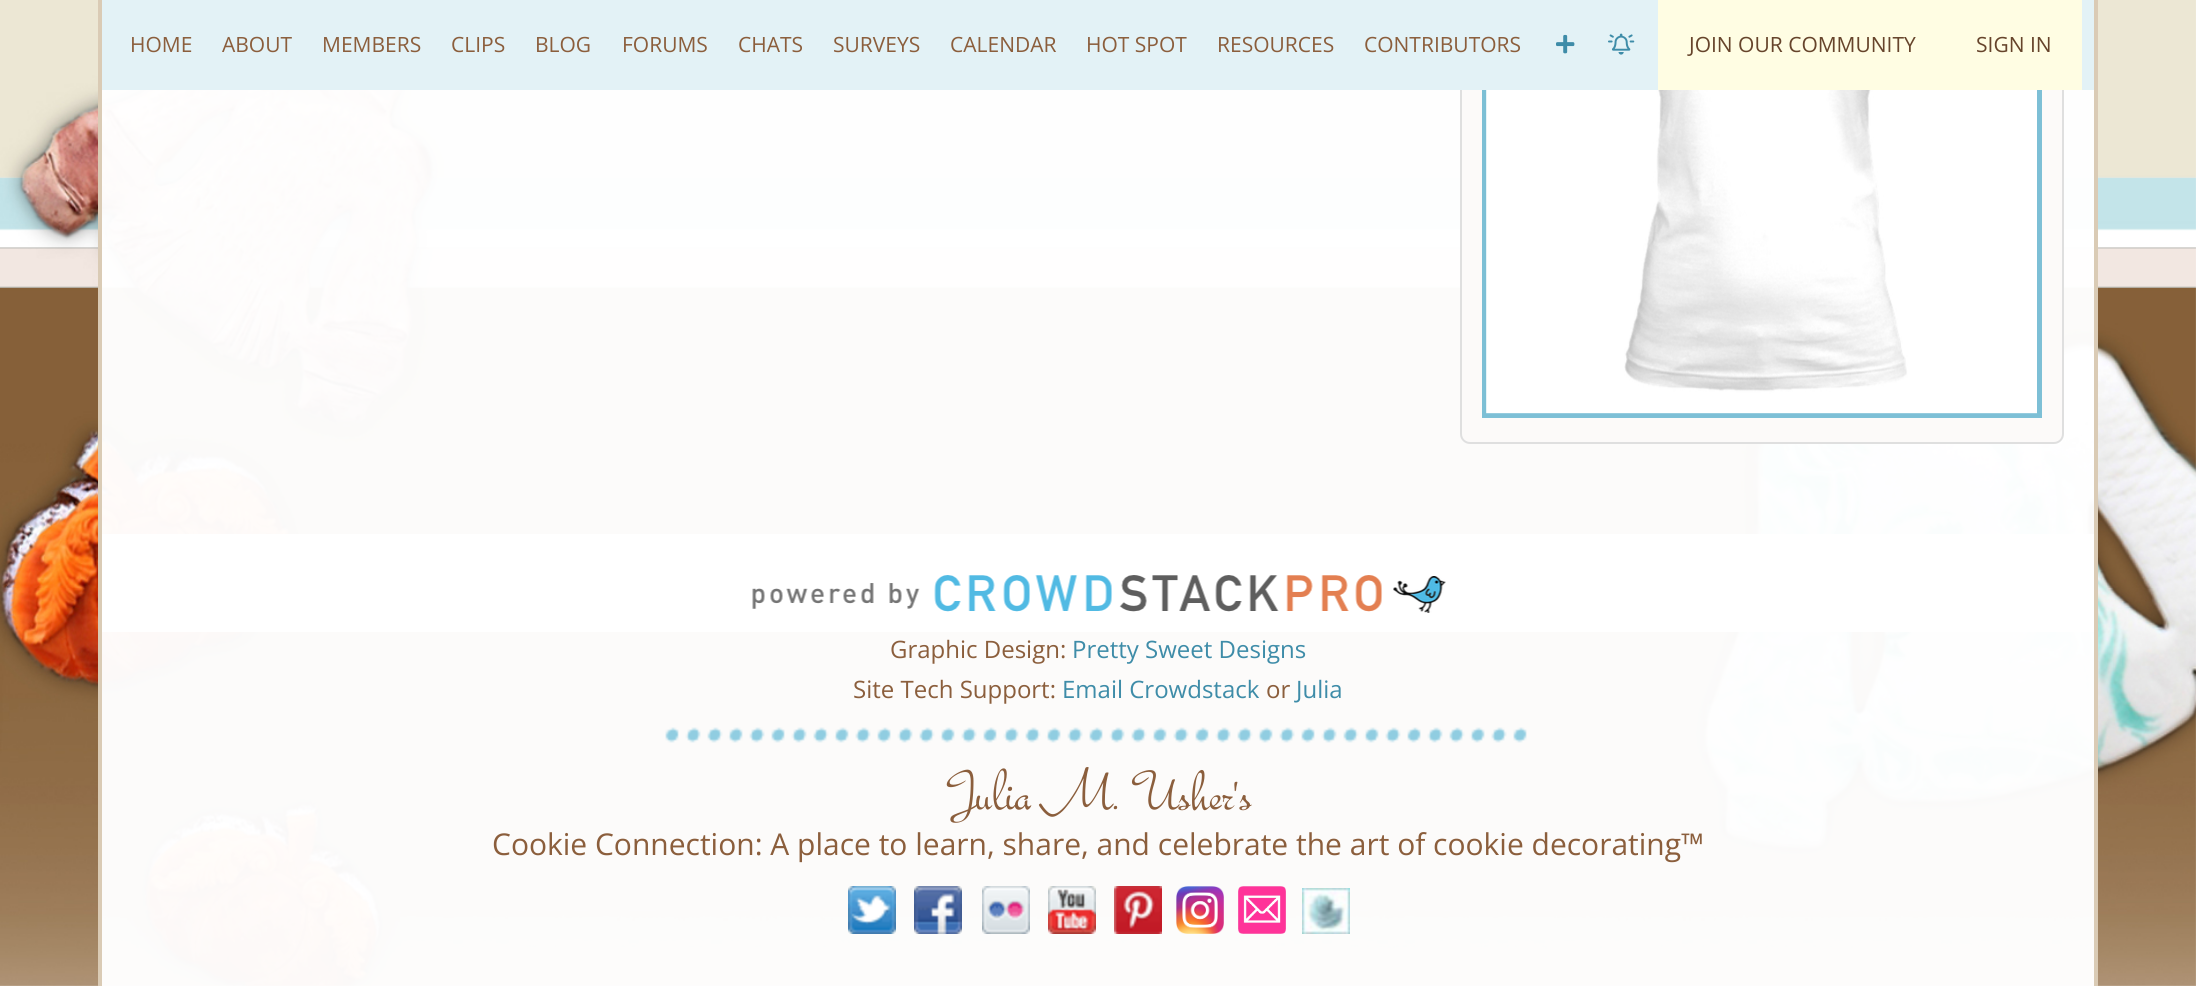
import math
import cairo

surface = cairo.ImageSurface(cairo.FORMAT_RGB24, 2196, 986)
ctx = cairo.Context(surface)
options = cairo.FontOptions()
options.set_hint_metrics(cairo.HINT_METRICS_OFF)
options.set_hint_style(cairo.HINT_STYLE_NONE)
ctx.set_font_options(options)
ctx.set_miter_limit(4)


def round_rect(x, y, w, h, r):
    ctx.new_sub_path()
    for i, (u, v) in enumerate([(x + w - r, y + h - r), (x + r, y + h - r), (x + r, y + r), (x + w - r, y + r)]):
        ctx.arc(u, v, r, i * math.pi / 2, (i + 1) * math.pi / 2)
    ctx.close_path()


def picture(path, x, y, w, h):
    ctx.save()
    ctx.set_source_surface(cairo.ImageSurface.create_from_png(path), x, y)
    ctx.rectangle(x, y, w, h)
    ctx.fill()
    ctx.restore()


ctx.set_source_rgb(1, 1, 1)
ctx.paint()
picture("img1.png", 0, 0, 2196, 986)
ctx.set_source_rgba(1, 1, 1, 0.97)
ctx.rectangle(102, 90, 1992, 444)
ctx.fill()
ctx.set_source_rgb(0.855, 0.796, 0.71)
ctx.rectangle(2094, 0, 4, 534)
ctx.fill()
ctx.rectangle(98, 0, 4, 534)
ctx.fill()
ctx.set_source_rgb(0.988, 0.98, 0.976)
round_rect(1461, -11, 602, 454, 9)
ctx.fill_preserve()
ctx.set_source_rgb(0.875, 0.875, 0.875)
ctx.stroke()
picture("img2.png", 1482, 90, 560, 328)
ctx.set_source_rgb(0.89, 0.949, 0.961)
ctx.rectangle(102, 0, 1992, 90)
ctx.fill()
ctx.select_font_face("Open Sans")
ctx.set_font_size(21)
ctx.set_source_rgb(0.545, 0.369, 0.235)
ctx.move_to(130, 52)
ctx.show_text("HOME")
ctx.move_to(222, 52)
ctx.show_text("ABOUT")
ctx.move_to(322, 52)
ctx.show_text("MEMBERS")
ctx.move_to(451, 52)
ctx.show_text("CLIPS")
ctx.move_to(535, 52)
ctx.show_text("BLOG")
ctx.move_to(622, 52)
ctx.show_text("FORUMS")
ctx.move_to(738, 52)
ctx.show_text("CHATS")
ctx.move_to(833, 52)
ctx.show_text("SURVEYS")
ctx.move_to(950, 52)
ctx.show_text("CALENDAR")
ctx.move_to(1086, 52)
ctx.show_text("HOT SPOT")
ctx.move_to(1217, 52)
ctx.show_text("RESOURCES")
ctx.move_to(1364, 52)
ctx.show_text("CONTRIBUTORS")
picture("img3.png", 1556, 34, 19, 20)
picture("img4.png", 1608, 33, 27, 22)
ctx.set_source_rgb(1, 0.992, 0.89)
ctx.rectangle(1658, 0, 424, 90)
ctx.fill()
ctx.set_source_rgb(0.4, 0.267, 0.169)
ctx.move_to(1689, 52)
ctx.show_text("JOIN OUR COMMUNITY")
ctx.move_to(1976, 52)
ctx.show_text("SIGN IN")
ctx.set_source_rgba(1, 1, 1, 0.97)
ctx.rectangle(102, 534, 1992, 98)
ctx.fill()
picture("img5.png", 752, 575, 694, 38)
ctx.rectangle(102, 632, 1992, 354)
ctx.fill()
ctx.set_source_rgb(0.855, 0.796, 0.71)
ctx.rectangle(2094, 632, 4, 354)
ctx.fill()
ctx.rectangle(98, 632, 4, 354)
ctx.fill()
ctx.set_font_size(24)
ctx.set_source_rgb(0.545, 0.369, 0.235)
ctx.move_to(890, 658)
ctx.show_text("Graphic Design:")
ctx.set_source_rgb(0.243, 0.549, 0.659)
ctx.move_to(1072, 658)
ctx.show_text("Pretty Sweet Designs")
ctx.set_source_rgb(0.545, 0.369, 0.235)
ctx.move_to(853, 698)
ctx.show_text("Site Tech Support:")
ctx.set_source_rgb(0.243, 0.549, 0.659)
ctx.move_to(1062, 698)
ctx.show_text("Email Crowdstack")
ctx.set_source_rgb(0.545, 0.369, 0.235)
ctx.move_to(1266, 698)
ctx.show_text("or")
ctx.set_source_rgb(0.243, 0.549, 0.659)
ctx.move_to(1296, 698)
ctx.show_text("Julia")
picture("img6.png", 665, 727, 862, 16)
ctx.select_font_face("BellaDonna")
ctx.set_font_size(60)
ctx.set_source_rgb(0.545, 0.369, 0.235)
ctx.move_to(945, 809)
ctx.show_text("Julia M. Usher's")
ctx.select_font_face("Open Sans")
ctx.set_font_size(30)
ctx.move_to(492, 855)
ctx.show_text("Cookie Connection: A place to learn, share, and celebrate the art of cookie decorating™")
picture("img7.png", 848, 886, 48, 48)
picture("img8.png", 914, 886, 48, 48)
picture("img9.png", 982, 886, 48, 48)
picture("img10.png", 1048, 886, 48, 48)
picture("img11.png", 1114, 886, 48, 48)
picture("img12.png", 1176, 886, 48, 48)
picture("img13.png", 1238, 886, 48, 48)
picture("img14.png", 1302, 888, 48, 46)
surface.write_to_png("page.png")
